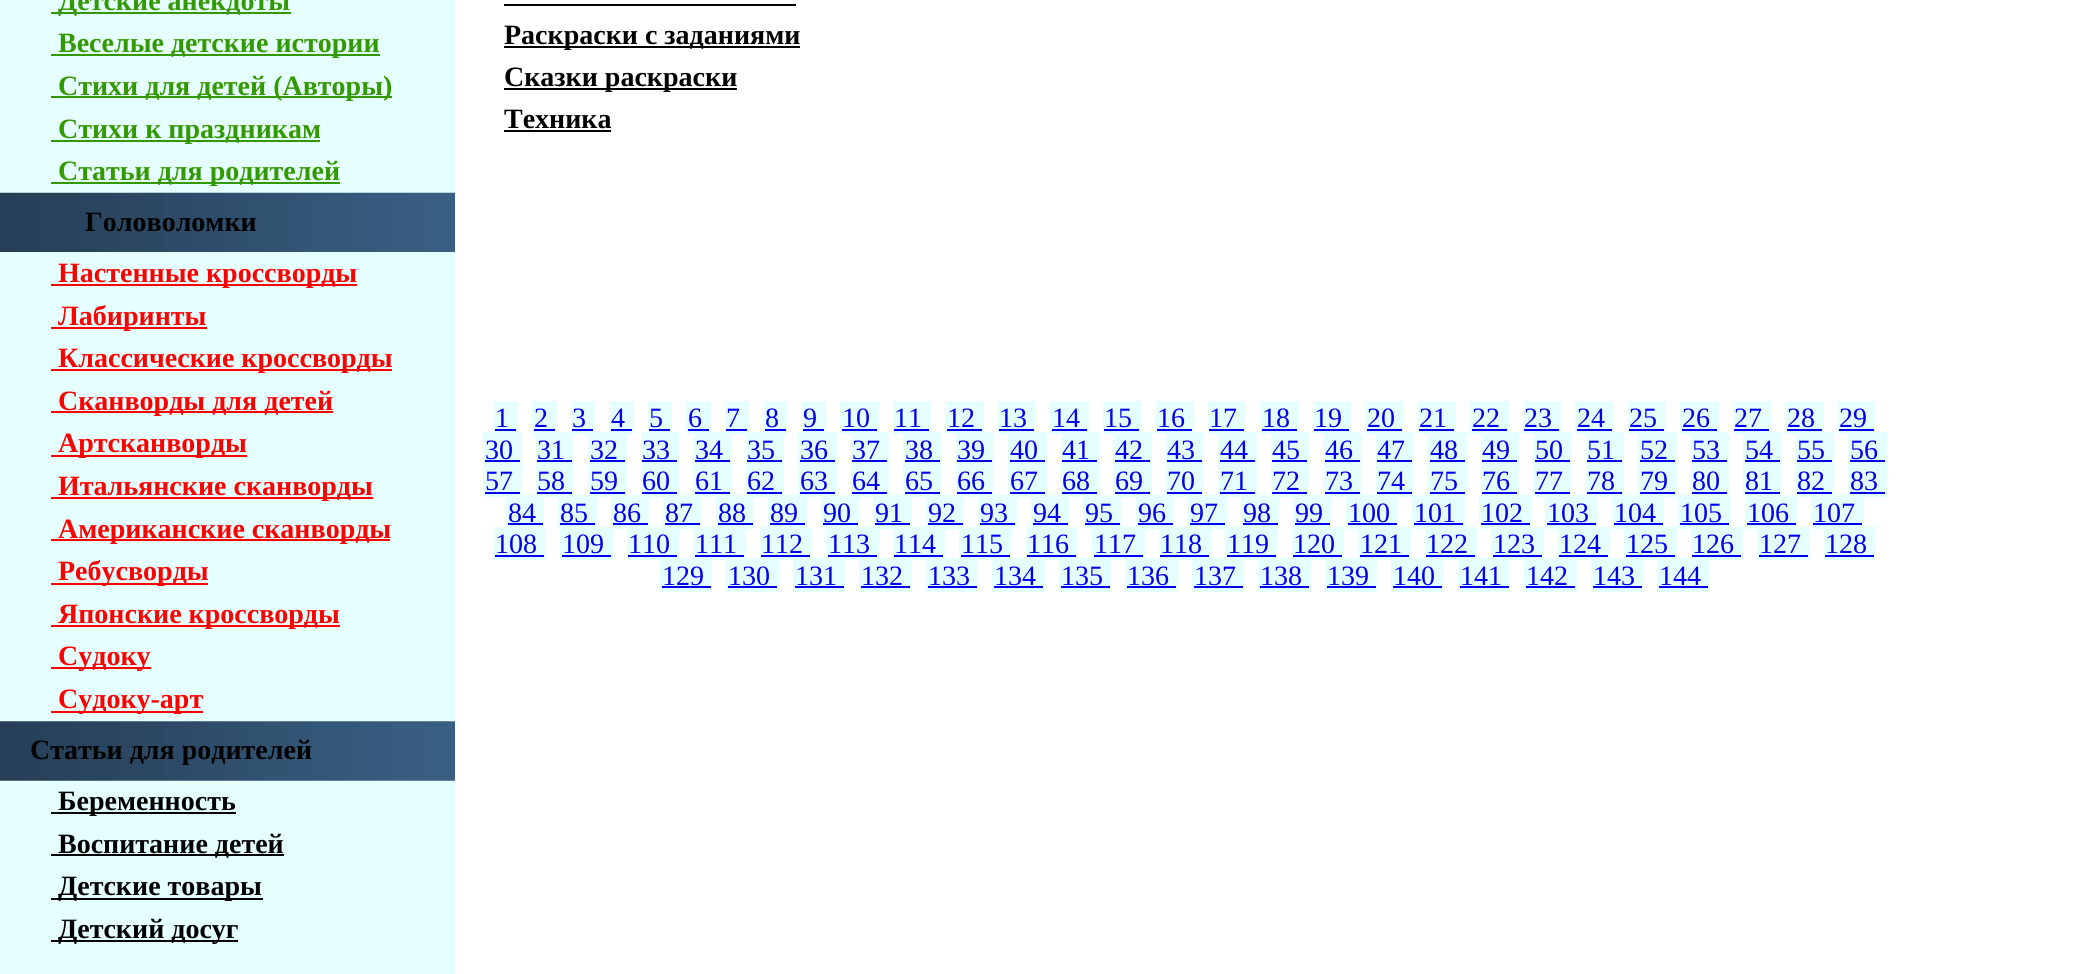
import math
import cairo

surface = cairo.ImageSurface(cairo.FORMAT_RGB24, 2083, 974)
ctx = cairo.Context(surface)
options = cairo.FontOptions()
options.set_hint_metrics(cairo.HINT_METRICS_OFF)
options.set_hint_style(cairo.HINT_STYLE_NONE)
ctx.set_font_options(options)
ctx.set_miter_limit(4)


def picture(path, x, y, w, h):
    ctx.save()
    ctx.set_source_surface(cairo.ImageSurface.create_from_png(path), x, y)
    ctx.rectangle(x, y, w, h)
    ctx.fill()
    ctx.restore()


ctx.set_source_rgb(1, 1, 1)
ctx.paint()
ctx.set_source_rgb(0.898, 1, 1)
ctx.rectangle(0, 0, 455, 193)
ctx.fill()
ctx.set_source_rgb(0.2, 0.6, 0)
ctx.rectangle(51, 12, 240, 2)
ctx.fill()
ctx.select_font_face("Liberation Serif", cairo.FONT_SLANT_NORMAL, cairo.FONT_WEIGHT_BOLD)
ctx.set_font_size(28)
ctx.move_to(58, 10)
ctx.show_text("Детские анекдоты")
ctx.rectangle(51, 54, 329, 2)
ctx.fill()
ctx.move_to(58, 52)
ctx.show_text("Веселые детские истории")
ctx.rectangle(51, 96, 341, 2)
ctx.fill()
ctx.move_to(58, 95)
ctx.show_text("Стихи для детей (Авторы)")
ctx.rectangle(51, 140, 269, 2)
ctx.fill()
ctx.move_to(58, 138)
ctx.show_text("Стихи к праздникам")
ctx.rectangle(51, 182, 289, 2)
ctx.fill()
ctx.move_to(58, 180)
ctx.show_text("Статьи для родителей")
picture("img1.png", 0, 192, 455, 60)
ctx.set_source_rgb(0, 0, 0)
ctx.move_to(85, 231)
ctx.show_text("Головоломки")
ctx.set_source_rgb(0.898, 1, 1)
ctx.rectangle(0, 252, 455, 469)
ctx.fill()
ctx.set_source_rgb(1, 0, 0)
ctx.rectangle(51, 284, 306, 2)
ctx.fill()
ctx.move_to(58, 282)
ctx.show_text("Настенные кроссворды")
ctx.rectangle(51, 327, 156, 2)
ctx.fill()
ctx.move_to(58, 325)
ctx.show_text("Лабиринты")
ctx.rectangle(51, 369, 341, 2)
ctx.fill()
ctx.move_to(58, 367)
ctx.show_text("Классические кроссворды")
ctx.rectangle(51, 411, 282, 2)
ctx.fill()
ctx.move_to(58, 410)
ctx.show_text("Сканворды для детей")
ctx.rectangle(51, 455, 196, 2)
ctx.fill()
ctx.move_to(58, 452)
ctx.show_text("Артсканворды")
ctx.rectangle(51, 497, 322, 2)
ctx.fill()
ctx.move_to(58, 495)
ctx.show_text("Итальянские сканворды")
ctx.rectangle(51, 539, 339, 2)
ctx.fill()
ctx.move_to(58, 538)
ctx.show_text("Американские сканворды")
ctx.rectangle(51, 583, 157, 2)
ctx.fill()
ctx.move_to(58, 580)
ctx.show_text("Ребусворды")
ctx.rectangle(51, 625, 289, 2)
ctx.fill()
ctx.move_to(58, 623)
ctx.show_text("Японские кроссворды")
ctx.rectangle(51, 667, 100, 2)
ctx.fill()
ctx.move_to(58, 665)
ctx.show_text("Судоку")
ctx.rectangle(51, 711, 152, 2)
ctx.fill()
ctx.move_to(58, 708)
ctx.show_text("Судоку-арт")
picture("img2.png", 0, 721, 455, 60)
ctx.set_source_rgb(0, 0, 0)
ctx.move_to(30, 759)
ctx.show_text("Статьи для родителей")
ctx.set_source_rgb(0.898, 1, 1)
ctx.rectangle(0, 781, 455, 193)
ctx.fill()
ctx.set_source_rgb(0, 0, 0)
ctx.rectangle(51, 812, 185, 2)
ctx.fill()
ctx.move_to(58, 810)
ctx.show_text("Беременность")
ctx.rectangle(51, 854, 233, 2)
ctx.fill()
ctx.move_to(58, 853)
ctx.show_text("Воспитание детей")
ctx.rectangle(51, 898, 212, 2)
ctx.fill()
ctx.move_to(58, 895)
ctx.show_text("Детские товары")
ctx.rectangle(51, 940, 187, 2)
ctx.fill()
ctx.move_to(58, 938)
ctx.show_text("Детский досуг")
ctx.rectangle(504, 4, 292, 2)
ctx.fill()
ctx.rectangle(504, 46, 296, 2)
ctx.fill()
ctx.move_to(504, 44)
ctx.show_text("Раскраски с заданиями")
ctx.rectangle(504, 88, 233, 2)
ctx.fill()
ctx.move_to(504, 86)
ctx.show_text("Сказки раскраски")
ctx.move_to(504, 128)
ctx.show_text("Техника")
ctx.rectangle(504, 130, 107, 2)
ctx.fill()
ctx.set_source_rgb(0.898, 1, 1)
ctx.rectangle(494, 401, 24, 31)
ctx.fill()
ctx.select_font_face("Liberation Serif")
ctx.set_source_rgb(0, 0, 0.933)
ctx.move_to(495, 427)
ctx.show_text("1")
ctx.rectangle(495, 429, 21, 2)
ctx.fill()
ctx.set_source_rgb(0.898, 1, 1)
ctx.rectangle(532, 401, 25, 33)
ctx.fill()
ctx.set_source_rgb(0, 0, 0.933)
ctx.move_to(534, 427)
ctx.show_text("2")
ctx.rectangle(534, 429, 21, 2)
ctx.fill()
ctx.set_source_rgb(0.898, 1, 1)
ctx.rectangle(571, 401, 24, 33)
ctx.fill()
ctx.set_source_rgb(0, 0, 0.933)
ctx.move_to(572, 427)
ctx.show_text("3")
ctx.rectangle(572, 429, 21, 2)
ctx.fill()
ctx.set_source_rgb(0.898, 1, 1)
ctx.rectangle(609, 401, 25, 33)
ctx.fill()
ctx.set_source_rgb(0, 0, 0.933)
ctx.move_to(611, 427)
ctx.show_text("4")
ctx.rectangle(611, 429, 21, 2)
ctx.fill()
ctx.set_source_rgb(0.898, 1, 1)
ctx.rectangle(648, 401, 24, 31)
ctx.fill()
ctx.set_source_rgb(0, 0, 0.933)
ctx.move_to(649, 427)
ctx.show_text("5")
ctx.rectangle(649, 429, 21, 2)
ctx.fill()
ctx.set_source_rgb(0.898, 1, 1)
ctx.rectangle(686, 401, 25, 33)
ctx.fill()
ctx.set_source_rgb(0, 0, 0.933)
ctx.move_to(688, 427)
ctx.show_text("6")
ctx.rectangle(688, 429, 21, 2)
ctx.fill()
ctx.set_source_rgb(0.898, 1, 1)
ctx.rectangle(725, 401, 24, 33)
ctx.fill()
ctx.set_source_rgb(0, 0, 0.933)
ctx.move_to(726, 427)
ctx.show_text("7")
ctx.rectangle(726, 429, 21, 2)
ctx.fill()
ctx.set_source_rgb(0.898, 1, 1)
ctx.rectangle(763, 401, 25, 33)
ctx.fill()
ctx.set_source_rgb(0, 0, 0.933)
ctx.move_to(765, 427)
ctx.show_text("8")
ctx.rectangle(765, 429, 21, 2)
ctx.fill()
ctx.set_source_rgb(0.898, 1, 1)
ctx.rectangle(802, 401, 24, 31)
ctx.fill()
ctx.set_source_rgb(0, 0, 0.933)
ctx.move_to(803, 427)
ctx.show_text("9")
ctx.rectangle(803, 429, 21, 2)
ctx.fill()
ctx.set_source_rgb(0.898, 1, 1)
ctx.rectangle(840, 401, 39, 33)
ctx.fill()
ctx.set_source_rgb(0, 0, 0.933)
ctx.move_to(842, 427)
ctx.show_text("10")
ctx.rectangle(842, 429, 35, 2)
ctx.fill()
ctx.set_source_rgb(0.898, 1, 1)
ctx.rectangle(893, 401, 38, 33)
ctx.fill()
ctx.set_source_rgb(0, 0, 0.933)
ctx.move_to(894, 427)
ctx.show_text("11")
ctx.rectangle(894, 429, 35, 2)
ctx.fill()
ctx.set_source_rgb(0.898, 1, 1)
ctx.rectangle(945, 401, 39, 33)
ctx.fill()
ctx.set_source_rgb(0, 0, 0.933)
ctx.move_to(947, 427)
ctx.show_text("12")
ctx.rectangle(947, 429, 35, 2)
ctx.fill()
ctx.set_source_rgb(0.898, 1, 1)
ctx.rectangle(998, 401, 38, 33)
ctx.fill()
ctx.set_source_rgb(0, 0, 0.933)
ctx.move_to(999, 427)
ctx.show_text("13")
ctx.rectangle(999, 429, 35, 2)
ctx.fill()
ctx.set_source_rgb(0.898, 1, 1)
ctx.rectangle(1050, 401, 39, 33)
ctx.fill()
ctx.set_source_rgb(0, 0, 0.933)
ctx.move_to(1052, 427)
ctx.show_text("14")
ctx.rectangle(1052, 429, 35, 2)
ctx.fill()
ctx.set_source_rgb(0.898, 1, 1)
ctx.rectangle(1103, 401, 38, 33)
ctx.fill()
ctx.set_source_rgb(0, 0, 0.933)
ctx.move_to(1104, 427)
ctx.show_text("15")
ctx.rectangle(1104, 429, 35, 2)
ctx.fill()
ctx.set_source_rgb(0.898, 1, 1)
ctx.rectangle(1155, 401, 39, 33)
ctx.fill()
ctx.set_source_rgb(0, 0, 0.933)
ctx.move_to(1157, 427)
ctx.show_text("16")
ctx.rectangle(1157, 429, 35, 2)
ctx.fill()
ctx.set_source_rgb(0.898, 1, 1)
ctx.rectangle(1208, 401, 38, 33)
ctx.fill()
ctx.set_source_rgb(0, 0, 0.933)
ctx.move_to(1209, 427)
ctx.show_text("17")
ctx.rectangle(1209, 429, 35, 2)
ctx.fill()
ctx.set_source_rgb(0.898, 1, 1)
ctx.rectangle(1260, 401, 39, 33)
ctx.fill()
ctx.set_source_rgb(0, 0, 0.933)
ctx.move_to(1262, 427)
ctx.show_text("18")
ctx.rectangle(1262, 429, 35, 2)
ctx.fill()
ctx.set_source_rgb(0.898, 1, 1)
ctx.rectangle(1313, 401, 38, 33)
ctx.fill()
ctx.set_source_rgb(0, 0, 0.933)
ctx.move_to(1314, 427)
ctx.show_text("19")
ctx.rectangle(1314, 429, 35, 2)
ctx.fill()
ctx.set_source_rgb(0.898, 1, 1)
ctx.rectangle(1365, 401, 39, 33)
ctx.fill()
ctx.set_source_rgb(0, 0, 0.933)
ctx.move_to(1367, 427)
ctx.show_text("20")
ctx.rectangle(1367, 429, 35, 2)
ctx.fill()
ctx.set_source_rgb(0.898, 1, 1)
ctx.rectangle(1418, 401, 38, 33)
ctx.fill()
ctx.set_source_rgb(0, 0, 0.933)
ctx.move_to(1419, 427)
ctx.show_text("21")
ctx.rectangle(1419, 429, 35, 2)
ctx.fill()
ctx.set_source_rgb(0.898, 1, 1)
ctx.rectangle(1470, 401, 39, 33)
ctx.fill()
ctx.set_source_rgb(0, 0, 0.933)
ctx.move_to(1472, 427)
ctx.show_text("22")
ctx.rectangle(1472, 429, 35, 2)
ctx.fill()
ctx.set_source_rgb(0.898, 1, 1)
ctx.rectangle(1523, 401, 38, 33)
ctx.fill()
ctx.set_source_rgb(0, 0, 0.933)
ctx.move_to(1524, 427)
ctx.show_text("23")
ctx.rectangle(1524, 429, 35, 2)
ctx.fill()
ctx.set_source_rgb(0.898, 1, 1)
ctx.rectangle(1575, 401, 39, 33)
ctx.fill()
ctx.set_source_rgb(0, 0, 0.933)
ctx.move_to(1577, 427)
ctx.show_text("24")
ctx.rectangle(1577, 429, 35, 2)
ctx.fill()
ctx.set_source_rgb(0.898, 1, 1)
ctx.rectangle(1628, 401, 38, 33)
ctx.fill()
ctx.set_source_rgb(0, 0, 0.933)
ctx.move_to(1629, 427)
ctx.show_text("25")
ctx.rectangle(1629, 429, 35, 2)
ctx.fill()
ctx.set_source_rgb(0.898, 1, 1)
ctx.rectangle(1680, 401, 39, 33)
ctx.fill()
ctx.set_source_rgb(0, 0, 0.933)
ctx.move_to(1682, 427)
ctx.show_text("26")
ctx.rectangle(1682, 429, 35, 2)
ctx.fill()
ctx.set_source_rgb(0.898, 1, 1)
ctx.rectangle(1733, 401, 38, 33)
ctx.fill()
ctx.set_source_rgb(0, 0, 0.933)
ctx.move_to(1734, 427)
ctx.show_text("27")
ctx.rectangle(1734, 429, 35, 2)
ctx.fill()
ctx.set_source_rgb(0.898, 1, 1)
ctx.rectangle(1785, 401, 39, 33)
ctx.fill()
ctx.set_source_rgb(0, 0, 0.933)
ctx.move_to(1787, 427)
ctx.show_text("28")
ctx.rectangle(1787, 429, 35, 2)
ctx.fill()
ctx.set_source_rgb(0.898, 1, 1)
ctx.rectangle(1838, 401, 38, 33)
ctx.fill()
ctx.set_source_rgb(0, 0, 0.933)
ctx.move_to(1839, 427)
ctx.show_text("29")
ctx.rectangle(1839, 429, 35, 2)
ctx.fill()
ctx.set_source_rgb(0.898, 1, 1)
ctx.rectangle(483, 432, 39, 65)
ctx.fill()
ctx.set_source_rgb(0, 0, 0.933)
ctx.move_to(485, 459)
ctx.show_text("30")
ctx.rectangle(485, 460, 35, 2)
ctx.fill()
ctx.set_source_rgb(0.898, 1, 1)
ctx.rectangle(536, 432, 38, 65)
ctx.fill()
ctx.set_source_rgb(0, 0, 0.933)
ctx.move_to(537, 459)
ctx.show_text("31")
ctx.rectangle(537, 460, 35, 2)
ctx.fill()
ctx.set_source_rgb(0.898, 1, 1)
ctx.rectangle(588, 432, 39, 65)
ctx.fill()
ctx.set_source_rgb(0, 0, 0.933)
ctx.move_to(590, 459)
ctx.show_text("32")
ctx.rectangle(590, 460, 35, 2)
ctx.fill()
ctx.set_source_rgb(0.898, 1, 1)
ctx.rectangle(641, 432, 38, 65)
ctx.fill()
ctx.set_source_rgb(0, 0, 0.933)
ctx.move_to(642, 459)
ctx.show_text("33")
ctx.rectangle(642, 460, 35, 2)
ctx.fill()
ctx.set_source_rgb(0.898, 1, 1)
ctx.rectangle(693, 432, 39, 65)
ctx.fill()
ctx.set_source_rgb(0, 0, 0.933)
ctx.move_to(695, 459)
ctx.show_text("34")
ctx.rectangle(695, 460, 35, 2)
ctx.fill()
ctx.set_source_rgb(0.898, 1, 1)
ctx.rectangle(746, 432, 38, 65)
ctx.fill()
ctx.set_source_rgb(0, 0, 0.933)
ctx.move_to(747, 459)
ctx.show_text("35")
ctx.rectangle(747, 460, 35, 2)
ctx.fill()
ctx.set_source_rgb(0.898, 1, 1)
ctx.rectangle(798, 432, 39, 65)
ctx.fill()
ctx.set_source_rgb(0, 0, 0.933)
ctx.move_to(800, 459)
ctx.show_text("36")
ctx.rectangle(800, 460, 35, 2)
ctx.fill()
ctx.set_source_rgb(0.898, 1, 1)
ctx.rectangle(851, 432, 38, 65)
ctx.fill()
ctx.set_source_rgb(0, 0, 0.933)
ctx.move_to(852, 459)
ctx.show_text("37")
ctx.rectangle(852, 460, 35, 2)
ctx.fill()
ctx.set_source_rgb(0.898, 1, 1)
ctx.rectangle(903, 432, 39, 65)
ctx.fill()
ctx.set_source_rgb(0, 0, 0.933)
ctx.move_to(905, 459)
ctx.show_text("38")
ctx.rectangle(905, 460, 35, 2)
ctx.fill()
ctx.set_source_rgb(0.898, 1, 1)
ctx.rectangle(956, 432, 38, 65)
ctx.fill()
ctx.set_source_rgb(0, 0, 0.933)
ctx.move_to(957, 459)
ctx.show_text("39")
ctx.rectangle(957, 460, 35, 2)
ctx.fill()
ctx.set_source_rgb(0.898, 1, 1)
ctx.rectangle(1008, 432, 39, 65)
ctx.fill()
ctx.set_source_rgb(0, 0, 0.933)
ctx.move_to(1010, 459)
ctx.show_text("40")
ctx.rectangle(1010, 460, 35, 2)
ctx.fill()
ctx.set_source_rgb(0.898, 1, 1)
ctx.rectangle(1061, 432, 38, 65)
ctx.fill()
ctx.set_source_rgb(0, 0, 0.933)
ctx.move_to(1062, 459)
ctx.show_text("41")
ctx.rectangle(1062, 460, 35, 2)
ctx.fill()
ctx.set_source_rgb(0.898, 1, 1)
ctx.rectangle(1113, 432, 39, 65)
ctx.fill()
ctx.set_source_rgb(0, 0, 0.933)
ctx.move_to(1115, 459)
ctx.show_text("42")
ctx.rectangle(1115, 460, 35, 2)
ctx.fill()
ctx.set_source_rgb(0.898, 1, 1)
ctx.rectangle(1166, 432, 38, 65)
ctx.fill()
ctx.set_source_rgb(0, 0, 0.933)
ctx.move_to(1167, 459)
ctx.show_text("43")
ctx.rectangle(1167, 460, 35, 2)
ctx.fill()
ctx.set_source_rgb(0.898, 1, 1)
ctx.rectangle(1218, 432, 39, 65)
ctx.fill()
ctx.set_source_rgb(0, 0, 0.933)
ctx.move_to(1220, 459)
ctx.show_text("44")
ctx.rectangle(1220, 460, 35, 2)
ctx.fill()
ctx.set_source_rgb(0.898, 1, 1)
ctx.rectangle(1271, 432, 38, 65)
ctx.fill()
ctx.set_source_rgb(0, 0, 0.933)
ctx.move_to(1272, 459)
ctx.show_text("45")
ctx.rectangle(1272, 460, 35, 2)
ctx.fill()
ctx.set_source_rgb(0.898, 1, 1)
ctx.rectangle(1323, 432, 39, 65)
ctx.fill()
ctx.set_source_rgb(0, 0, 0.933)
ctx.move_to(1325, 459)
ctx.show_text("46")
ctx.rectangle(1325, 460, 35, 2)
ctx.fill()
ctx.set_source_rgb(0.898, 1, 1)
ctx.rectangle(1376, 432, 38, 65)
ctx.fill()
ctx.set_source_rgb(0, 0, 0.933)
ctx.move_to(1377, 459)
ctx.show_text("47")
ctx.rectangle(1377, 460, 35, 2)
ctx.fill()
ctx.set_source_rgb(0.898, 1, 1)
ctx.rectangle(1428, 432, 39, 65)
ctx.fill()
ctx.set_source_rgb(0, 0, 0.933)
ctx.move_to(1430, 459)
ctx.show_text("48")
ctx.rectangle(1430, 460, 35, 2)
ctx.fill()
ctx.set_source_rgb(0.898, 1, 1)
ctx.rectangle(1481, 432, 38, 63)
ctx.fill()
ctx.set_source_rgb(0, 0, 0.933)
ctx.move_to(1482, 459)
ctx.show_text("49")
ctx.rectangle(1482, 460, 35, 2)
ctx.fill()
ctx.set_source_rgb(0.898, 1, 1)
ctx.rectangle(1533, 432, 39, 65)
ctx.fill()
ctx.set_source_rgb(0, 0, 0.933)
ctx.move_to(1535, 459)
ctx.show_text("50")
ctx.rectangle(1535, 460, 35, 2)
ctx.fill()
ctx.set_source_rgb(0.898, 1, 1)
ctx.rectangle(1586, 432, 38, 65)
ctx.fill()
ctx.set_source_rgb(0, 0, 0.933)
ctx.move_to(1587, 459)
ctx.show_text("51")
ctx.rectangle(1587, 460, 35, 2)
ctx.fill()
ctx.set_source_rgb(0.898, 1, 1)
ctx.rectangle(1638, 432, 39, 65)
ctx.fill()
ctx.set_source_rgb(0, 0, 0.933)
ctx.move_to(1640, 459)
ctx.show_text("52")
ctx.rectangle(1640, 460, 35, 2)
ctx.fill()
ctx.set_source_rgb(0.898, 1, 1)
ctx.rectangle(1691, 432, 38, 63)
ctx.fill()
ctx.set_source_rgb(0, 0, 0.933)
ctx.move_to(1692, 459)
ctx.show_text("53")
ctx.rectangle(1692, 460, 35, 2)
ctx.fill()
ctx.set_source_rgb(0.898, 1, 1)
ctx.rectangle(1743, 432, 39, 65)
ctx.fill()
ctx.set_source_rgb(0, 0, 0.933)
ctx.move_to(1745, 459)
ctx.show_text("54")
ctx.rectangle(1745, 460, 35, 2)
ctx.fill()
ctx.set_source_rgb(0.898, 1, 1)
ctx.rectangle(1796, 432, 38, 65)
ctx.fill()
ctx.set_source_rgb(0, 0, 0.933)
ctx.move_to(1797, 459)
ctx.show_text("55")
ctx.rectangle(1797, 460, 35, 2)
ctx.fill()
ctx.set_source_rgb(0.898, 1, 1)
ctx.rectangle(1848, 432, 39, 65)
ctx.fill()
ctx.set_source_rgb(0, 0, 0.933)
ctx.move_to(1850, 459)
ctx.show_text("56")
ctx.rectangle(1850, 460, 35, 2)
ctx.fill()
ctx.move_to(485, 490)
ctx.show_text("57")
ctx.rectangle(485, 492, 35, 2)
ctx.fill()
ctx.move_to(537, 490)
ctx.show_text("58")
ctx.rectangle(537, 492, 35, 2)
ctx.fill()
ctx.move_to(590, 490)
ctx.show_text("59")
ctx.rectangle(590, 492, 35, 2)
ctx.fill()
ctx.move_to(642, 490)
ctx.show_text("60")
ctx.rectangle(642, 492, 35, 2)
ctx.fill()
ctx.move_to(695, 490)
ctx.show_text("61")
ctx.rectangle(695, 492, 35, 2)
ctx.fill()
ctx.move_to(747, 490)
ctx.show_text("62")
ctx.rectangle(747, 492, 35, 2)
ctx.fill()
ctx.move_to(800, 490)
ctx.show_text("63")
ctx.rectangle(800, 492, 35, 2)
ctx.fill()
ctx.move_to(852, 490)
ctx.show_text("64")
ctx.rectangle(852, 492, 35, 2)
ctx.fill()
ctx.move_to(905, 490)
ctx.show_text("65")
ctx.rectangle(905, 492, 35, 2)
ctx.fill()
ctx.move_to(957, 490)
ctx.show_text("66")
ctx.rectangle(957, 492, 35, 2)
ctx.fill()
ctx.move_to(1010, 490)
ctx.show_text("67")
ctx.rectangle(1010, 492, 35, 2)
ctx.fill()
ctx.move_to(1062, 490)
ctx.show_text("68")
ctx.rectangle(1062, 492, 35, 2)
ctx.fill()
ctx.move_to(1115, 490)
ctx.show_text("69")
ctx.rectangle(1115, 492, 35, 2)
ctx.fill()
ctx.move_to(1167, 490)
ctx.show_text("70")
ctx.rectangle(1167, 492, 35, 2)
ctx.fill()
ctx.move_to(1220, 490)
ctx.show_text("71")
ctx.rectangle(1220, 492, 35, 2)
ctx.fill()
ctx.move_to(1272, 490)
ctx.show_text("72")
ctx.rectangle(1272, 492, 35, 2)
ctx.fill()
ctx.move_to(1325, 490)
ctx.show_text("73")
ctx.rectangle(1325, 492, 35, 2)
ctx.fill()
ctx.move_to(1377, 490)
ctx.show_text("74")
ctx.rectangle(1377, 492, 35, 2)
ctx.fill()
ctx.move_to(1430, 490)
ctx.show_text("75")
ctx.rectangle(1430, 492, 35, 2)
ctx.fill()
ctx.move_to(1482, 490)
ctx.show_text("76")
ctx.rectangle(1482, 492, 35, 2)
ctx.fill()
ctx.move_to(1535, 490)
ctx.show_text("77")
ctx.rectangle(1535, 492, 35, 2)
ctx.fill()
ctx.move_to(1587, 490)
ctx.show_text("78")
ctx.rectangle(1587, 492, 35, 2)
ctx.fill()
ctx.move_to(1640, 490)
ctx.show_text("79")
ctx.rectangle(1640, 492, 35, 2)
ctx.fill()
ctx.move_to(1692, 490)
ctx.show_text("80")
ctx.rectangle(1692, 492, 35, 2)
ctx.fill()
ctx.move_to(1745, 490)
ctx.show_text("81")
ctx.rectangle(1745, 492, 35, 2)
ctx.fill()
ctx.move_to(1797, 490)
ctx.show_text("82")
ctx.rectangle(1797, 492, 35, 2)
ctx.fill()
ctx.move_to(1850, 490)
ctx.show_text("83")
ctx.rectangle(1850, 492, 35, 2)
ctx.fill()
ctx.set_source_rgb(0.898, 1, 1)
ctx.rectangle(506, 495, 38, 32)
ctx.fill()
ctx.set_source_rgb(0, 0, 0.933)
ctx.move_to(508, 522)
ctx.show_text("84")
ctx.rectangle(508, 523, 35, 2)
ctx.fill()
ctx.set_source_rgb(0.898, 1, 1)
ctx.rectangle(558, 495, 39, 34)
ctx.fill()
ctx.set_source_rgb(0, 0, 0.933)
ctx.move_to(560, 522)
ctx.show_text("85")
ctx.rectangle(560, 523, 35, 2)
ctx.fill()
ctx.set_source_rgb(0.898, 1, 1)
ctx.rectangle(611, 495, 38, 34)
ctx.fill()
ctx.set_source_rgb(0, 0, 0.933)
ctx.move_to(613, 522)
ctx.show_text("86")
ctx.rectangle(613, 523, 35, 2)
ctx.fill()
ctx.set_source_rgb(0.898, 1, 1)
ctx.rectangle(663, 495, 39, 34)
ctx.fill()
ctx.set_source_rgb(0, 0, 0.933)
ctx.move_to(665, 522)
ctx.show_text("87")
ctx.rectangle(665, 523, 35, 2)
ctx.fill()
ctx.set_source_rgb(0.898, 1, 1)
ctx.rectangle(716, 495, 38, 34)
ctx.fill()
ctx.set_source_rgb(0, 0, 0.933)
ctx.move_to(718, 522)
ctx.show_text("88")
ctx.rectangle(718, 523, 35, 2)
ctx.fill()
ctx.set_source_rgb(0.898, 1, 1)
ctx.rectangle(768, 495, 39, 32)
ctx.fill()
ctx.set_source_rgb(0, 0, 0.933)
ctx.move_to(770, 522)
ctx.show_text("89")
ctx.rectangle(770, 523, 35, 2)
ctx.fill()
ctx.set_source_rgb(0.898, 1, 1)
ctx.rectangle(821, 495, 38, 34)
ctx.fill()
ctx.set_source_rgb(0, 0, 0.933)
ctx.move_to(823, 522)
ctx.show_text("90")
ctx.rectangle(823, 523, 35, 2)
ctx.fill()
ctx.set_source_rgb(0.898, 1, 1)
ctx.rectangle(873, 495, 39, 34)
ctx.fill()
ctx.set_source_rgb(0, 0, 0.933)
ctx.move_to(875, 522)
ctx.show_text("91")
ctx.rectangle(875, 523, 35, 2)
ctx.fill()
ctx.set_source_rgb(0.898, 1, 1)
ctx.rectangle(926, 495, 38, 34)
ctx.fill()
ctx.set_source_rgb(0, 0, 0.933)
ctx.move_to(928, 522)
ctx.show_text("92")
ctx.rectangle(928, 523, 35, 2)
ctx.fill()
ctx.set_source_rgb(0.898, 1, 1)
ctx.rectangle(978, 495, 39, 34)
ctx.fill()
ctx.set_source_rgb(0, 0, 0.933)
ctx.move_to(980, 522)
ctx.show_text("93")
ctx.rectangle(980, 523, 35, 2)
ctx.fill()
ctx.set_source_rgb(0.898, 1, 1)
ctx.rectangle(1031, 495, 38, 32)
ctx.fill()
ctx.set_source_rgb(0, 0, 0.933)
ctx.move_to(1033, 522)
ctx.show_text("94")
ctx.rectangle(1033, 523, 35, 2)
ctx.fill()
ctx.set_source_rgb(0.898, 1, 1)
ctx.rectangle(1083, 495, 39, 34)
ctx.fill()
ctx.set_source_rgb(0, 0, 0.933)
ctx.move_to(1085, 522)
ctx.show_text("95")
ctx.rectangle(1085, 523, 35, 2)
ctx.fill()
ctx.set_source_rgb(0.898, 1, 1)
ctx.rectangle(1136, 495, 38, 34)
ctx.fill()
ctx.set_source_rgb(0, 0, 0.933)
ctx.move_to(1138, 522)
ctx.show_text("96")
ctx.rectangle(1138, 523, 35, 2)
ctx.fill()
ctx.set_source_rgb(0.898, 1, 1)
ctx.rectangle(1188, 495, 39, 34)
ctx.fill()
ctx.set_source_rgb(0, 0, 0.933)
ctx.move_to(1190, 522)
ctx.show_text("97")
ctx.rectangle(1190, 523, 35, 2)
ctx.fill()
ctx.set_source_rgb(0.898, 1, 1)
ctx.rectangle(1241, 495, 38, 34)
ctx.fill()
ctx.set_source_rgb(0, 0, 0.933)
ctx.move_to(1243, 522)
ctx.show_text("98")
ctx.rectangle(1243, 523, 35, 2)
ctx.fill()
ctx.set_source_rgb(0.898, 1, 1)
ctx.rectangle(1293, 495, 39, 32)
ctx.fill()
ctx.set_source_rgb(0, 0, 0.933)
ctx.move_to(1295, 522)
ctx.show_text("99")
ctx.rectangle(1295, 523, 35, 2)
ctx.fill()
ctx.set_source_rgb(0.898, 1, 1)
ctx.rectangle(1346, 495, 52, 34)
ctx.fill()
ctx.set_source_rgb(0, 0, 0.933)
ctx.move_to(1348, 522)
ctx.show_text("100")
ctx.rectangle(1348, 523, 49, 2)
ctx.fill()
ctx.set_source_rgb(0.898, 1, 1)
ctx.rectangle(1412, 495, 53, 34)
ctx.fill()
ctx.set_source_rgb(0, 0, 0.933)
ctx.move_to(1414, 522)
ctx.show_text("101")
ctx.rectangle(1414, 523, 49, 2)
ctx.fill()
ctx.set_source_rgb(0.898, 1, 1)
ctx.rectangle(1479, 495, 52, 34)
ctx.fill()
ctx.set_source_rgb(0, 0, 0.933)
ctx.move_to(1481, 522)
ctx.show_text("102")
ctx.rectangle(1481, 523, 49, 2)
ctx.fill()
ctx.set_source_rgb(0.898, 1, 1)
ctx.rectangle(1545, 495, 53, 34)
ctx.fill()
ctx.set_source_rgb(0, 0, 0.933)
ctx.move_to(1547, 522)
ctx.show_text("103")
ctx.rectangle(1547, 523, 49, 2)
ctx.fill()
ctx.set_source_rgb(0.898, 1, 1)
ctx.rectangle(1612, 495, 52, 34)
ctx.fill()
ctx.set_source_rgb(0, 0, 0.933)
ctx.move_to(1614, 522)
ctx.show_text("104")
ctx.rectangle(1614, 523, 49, 2)
ctx.fill()
ctx.set_source_rgb(0.898, 1, 1)
ctx.rectangle(1678, 495, 53, 34)
ctx.fill()
ctx.set_source_rgb(0, 0, 0.933)
ctx.move_to(1680, 522)
ctx.show_text("105")
ctx.rectangle(1680, 523, 49, 2)
ctx.fill()
ctx.set_source_rgb(0.898, 1, 1)
ctx.rectangle(1745, 495, 52, 34)
ctx.fill()
ctx.set_source_rgb(0, 0, 0.933)
ctx.move_to(1747, 522)
ctx.show_text("106")
ctx.rectangle(1747, 523, 49, 2)
ctx.fill()
ctx.set_source_rgb(0.898, 1, 1)
ctx.rectangle(1811, 495, 53, 34)
ctx.fill()
ctx.set_source_rgb(0, 0, 0.933)
ctx.move_to(1813, 522)
ctx.show_text("107")
ctx.rectangle(1813, 523, 49, 2)
ctx.fill()
ctx.set_source_rgb(0.898, 1, 1)
ctx.rectangle(494, 527, 52, 33)
ctx.fill()
ctx.set_source_rgb(0, 0, 0.933)
ctx.move_to(495, 553)
ctx.show_text("108")
ctx.rectangle(495, 555, 49, 2)
ctx.fill()
ctx.set_source_rgb(0.898, 1, 1)
ctx.rectangle(560, 527, 53, 33)
ctx.fill()
ctx.set_source_rgb(0, 0, 0.933)
ctx.move_to(562, 553)
ctx.show_text("109")
ctx.rectangle(562, 555, 49, 2)
ctx.fill()
ctx.set_source_rgb(0.898, 1, 1)
ctx.rectangle(627, 527, 52, 33)
ctx.fill()
ctx.set_source_rgb(0, 0, 0.933)
ctx.move_to(628, 553)
ctx.show_text("110")
ctx.rectangle(628, 555, 49, 2)
ctx.fill()
ctx.set_source_rgb(0.898, 1, 1)
ctx.rectangle(693, 527, 53, 33)
ctx.fill()
ctx.set_source_rgb(0, 0, 0.933)
ctx.move_to(695, 553)
ctx.show_text("111")
ctx.rectangle(695, 555, 49, 2)
ctx.fill()
ctx.set_source_rgb(0.898, 1, 1)
ctx.rectangle(760, 527, 52, 33)
ctx.fill()
ctx.set_source_rgb(0, 0, 0.933)
ctx.move_to(761, 553)
ctx.show_text("112")
ctx.rectangle(761, 555, 49, 2)
ctx.fill()
ctx.set_source_rgb(0.898, 1, 1)
ctx.rectangle(826, 527, 53, 33)
ctx.fill()
ctx.set_source_rgb(0, 0, 0.933)
ctx.move_to(828, 553)
ctx.show_text("113")
ctx.rectangle(828, 555, 49, 2)
ctx.fill()
ctx.set_source_rgb(0.898, 1, 1)
ctx.rectangle(893, 527, 52, 33)
ctx.fill()
ctx.set_source_rgb(0, 0, 0.933)
ctx.move_to(894, 553)
ctx.show_text("114")
ctx.rectangle(894, 555, 49, 2)
ctx.fill()
ctx.set_source_rgb(0.898, 1, 1)
ctx.rectangle(959, 527, 53, 33)
ctx.fill()
ctx.set_source_rgb(0, 0, 0.933)
ctx.move_to(961, 553)
ctx.show_text("115")
ctx.rectangle(961, 555, 49, 2)
ctx.fill()
ctx.set_source_rgb(0.898, 1, 1)
ctx.rectangle(1026, 527, 52, 33)
ctx.fill()
ctx.set_source_rgb(0, 0, 0.933)
ctx.move_to(1027, 553)
ctx.show_text("116")
ctx.rectangle(1027, 555, 49, 2)
ctx.fill()
ctx.set_source_rgb(0.898, 1, 1)
ctx.rectangle(1092, 527, 53, 33)
ctx.fill()
ctx.set_source_rgb(0, 0, 0.933)
ctx.move_to(1094, 553)
ctx.show_text("117")
ctx.rectangle(1094, 555, 49, 2)
ctx.fill()
ctx.set_source_rgb(0.898, 1, 1)
ctx.rectangle(1159, 527, 52, 33)
ctx.fill()
ctx.set_source_rgb(0, 0, 0.933)
ctx.move_to(1160, 553)
ctx.show_text("118")
ctx.rectangle(1160, 555, 49, 2)
ctx.fill()
ctx.set_source_rgb(0.898, 1, 1)
ctx.rectangle(1225, 527, 53, 33)
ctx.fill()
ctx.set_source_rgb(0, 0, 0.933)
ctx.move_to(1227, 553)
ctx.show_text("119")
ctx.rectangle(1227, 555, 49, 2)
ctx.fill()
ctx.set_source_rgb(0.898, 1, 1)
ctx.rectangle(1292, 527, 52, 33)
ctx.fill()
ctx.set_source_rgb(0, 0, 0.933)
ctx.move_to(1293, 553)
ctx.show_text("120")
ctx.rectangle(1293, 555, 49, 2)
ctx.fill()
ctx.set_source_rgb(0.898, 1, 1)
ctx.rectangle(1358, 527, 53, 33)
ctx.fill()
ctx.set_source_rgb(0, 0, 0.933)
ctx.move_to(1360, 553)
ctx.show_text("121")
ctx.rectangle(1360, 555, 49, 2)
ctx.fill()
ctx.set_source_rgb(0.898, 1, 1)
ctx.rectangle(1425, 527, 52, 33)
ctx.fill()
ctx.set_source_rgb(0, 0, 0.933)
ctx.move_to(1426, 553)
ctx.show_text("122")
ctx.rectangle(1426, 555, 49, 2)
ctx.fill()
ctx.set_source_rgb(0.898, 1, 1)
ctx.rectangle(1491, 527, 53, 33)
ctx.fill()
ctx.set_source_rgb(0, 0, 0.933)
ctx.move_to(1493, 553)
ctx.show_text("123")
ctx.rectangle(1493, 555, 49, 2)
ctx.fill()
ctx.set_source_rgb(0.898, 1, 1)
ctx.rectangle(1558, 527, 52, 33)
ctx.fill()
ctx.set_source_rgb(0, 0, 0.933)
ctx.move_to(1559, 553)
ctx.show_text("124")
ctx.rectangle(1559, 555, 49, 2)
ctx.fill()
ctx.set_source_rgb(0.898, 1, 1)
ctx.rectangle(1624, 527, 53, 33)
ctx.fill()
ctx.set_source_rgb(0, 0, 0.933)
ctx.move_to(1626, 553)
ctx.show_text("125")
ctx.rectangle(1626, 555, 49, 2)
ctx.fill()
ctx.set_source_rgb(0.898, 1, 1)
ctx.rectangle(1691, 527, 52, 33)
ctx.fill()
ctx.set_source_rgb(0, 0, 0.933)
ctx.move_to(1692, 553)
ctx.show_text("126")
ctx.rectangle(1692, 555, 49, 2)
ctx.fill()
ctx.set_source_rgb(0.898, 1, 1)
ctx.rectangle(1757, 527, 53, 33)
ctx.fill()
ctx.set_source_rgb(0, 0, 0.933)
ctx.move_to(1759, 553)
ctx.show_text("127")
ctx.rectangle(1759, 555, 49, 2)
ctx.fill()
ctx.set_source_rgb(0.898, 1, 1)
ctx.rectangle(1824, 527, 52, 33)
ctx.fill()
ctx.set_source_rgb(0, 0, 0.933)
ctx.move_to(1825, 553)
ctx.show_text("128")
ctx.rectangle(1825, 555, 49, 2)
ctx.fill()
ctx.set_source_rgb(0.898, 1, 1)
ctx.rectangle(660, 558, 52, 34)
ctx.fill()
ctx.set_source_rgb(0, 0, 0.933)
ctx.move_to(662, 585)
ctx.show_text("129")
ctx.rectangle(662, 586, 49, 2)
ctx.fill()
ctx.set_source_rgb(0.898, 1, 1)
ctx.rectangle(726, 558, 53, 34)
ctx.fill()
ctx.set_source_rgb(0, 0, 0.933)
ctx.move_to(728, 585)
ctx.show_text("130")
ctx.rectangle(728, 586, 49, 2)
ctx.fill()
ctx.set_source_rgb(0.898, 1, 1)
ctx.rectangle(793, 558, 52, 34)
ctx.fill()
ctx.set_source_rgb(0, 0, 0.933)
ctx.move_to(795, 585)
ctx.show_text("131")
ctx.rectangle(795, 586, 49, 2)
ctx.fill()
ctx.set_source_rgb(0.898, 1, 1)
ctx.rectangle(859, 558, 53, 34)
ctx.fill()
ctx.set_source_rgb(0, 0, 0.933)
ctx.move_to(861, 585)
ctx.show_text("132")
ctx.rectangle(861, 586, 49, 2)
ctx.fill()
ctx.set_source_rgb(0.898, 1, 1)
ctx.rectangle(926, 558, 52, 34)
ctx.fill()
ctx.set_source_rgb(0, 0, 0.933)
ctx.move_to(928, 585)
ctx.show_text("133")
ctx.rectangle(928, 586, 49, 2)
ctx.fill()
ctx.set_source_rgb(0.898, 1, 1)
ctx.rectangle(992, 558, 53, 34)
ctx.fill()
ctx.set_source_rgb(0, 0, 0.933)
ctx.move_to(994, 585)
ctx.show_text("134")
ctx.rectangle(994, 586, 49, 2)
ctx.fill()
ctx.set_source_rgb(0.898, 1, 1)
ctx.rectangle(1059, 558, 52, 34)
ctx.fill()
ctx.set_source_rgb(0, 0, 0.933)
ctx.move_to(1061, 585)
ctx.show_text("135")
ctx.rectangle(1061, 586, 49, 2)
ctx.fill()
ctx.set_source_rgb(0.898, 1, 1)
ctx.rectangle(1125, 558, 53, 34)
ctx.fill()
ctx.set_source_rgb(0, 0, 0.933)
ctx.move_to(1127, 585)
ctx.show_text("136")
ctx.rectangle(1127, 586, 49, 2)
ctx.fill()
ctx.set_source_rgb(0.898, 1, 1)
ctx.rectangle(1192, 558, 52, 34)
ctx.fill()
ctx.set_source_rgb(0, 0, 0.933)
ctx.move_to(1194, 585)
ctx.show_text("137")
ctx.rectangle(1194, 586, 49, 2)
ctx.fill()
ctx.set_source_rgb(0.898, 1, 1)
ctx.rectangle(1258, 558, 53, 34)
ctx.fill()
ctx.set_source_rgb(0, 0, 0.933)
ctx.move_to(1260, 585)
ctx.show_text("138")
ctx.rectangle(1260, 586, 49, 2)
ctx.fill()
ctx.set_source_rgb(0.898, 1, 1)
ctx.rectangle(1325, 558, 52, 34)
ctx.fill()
ctx.set_source_rgb(0, 0, 0.933)
ctx.move_to(1327, 585)
ctx.show_text("139")
ctx.rectangle(1327, 586, 49, 2)
ctx.fill()
ctx.set_source_rgb(0.898, 1, 1)
ctx.rectangle(1391, 558, 53, 34)
ctx.fill()
ctx.set_source_rgb(0, 0, 0.933)
ctx.move_to(1393, 585)
ctx.show_text("140")
ctx.rectangle(1393, 586, 49, 2)
ctx.fill()
ctx.set_source_rgb(0.898, 1, 1)
ctx.rectangle(1458, 558, 52, 34)
ctx.fill()
ctx.set_source_rgb(0, 0, 0.933)
ctx.move_to(1460, 585)
ctx.show_text("141")
ctx.rectangle(1460, 586, 49, 2)
ctx.fill()
ctx.set_source_rgb(0.898, 1, 1)
ctx.rectangle(1524, 558, 53, 34)
ctx.fill()
ctx.set_source_rgb(0, 0, 0.933)
ctx.move_to(1526, 585)
ctx.show_text("142")
ctx.rectangle(1526, 586, 49, 2)
ctx.fill()
ctx.set_source_rgb(0.898, 1, 1)
ctx.rectangle(1591, 558, 52, 34)
ctx.fill()
ctx.set_source_rgb(0, 0, 0.933)
ctx.move_to(1593, 585)
ctx.show_text("143")
ctx.rectangle(1593, 586, 49, 2)
ctx.fill()
ctx.set_source_rgb(0.898, 1, 1)
ctx.rectangle(1657, 558, 53, 34)
ctx.fill()
ctx.set_source_rgb(0, 0, 0.933)
ctx.move_to(1659, 585)
ctx.show_text("144")
ctx.rectangle(1659, 586, 49, 2)
ctx.fill()
surface.write_to_png("page.png")
